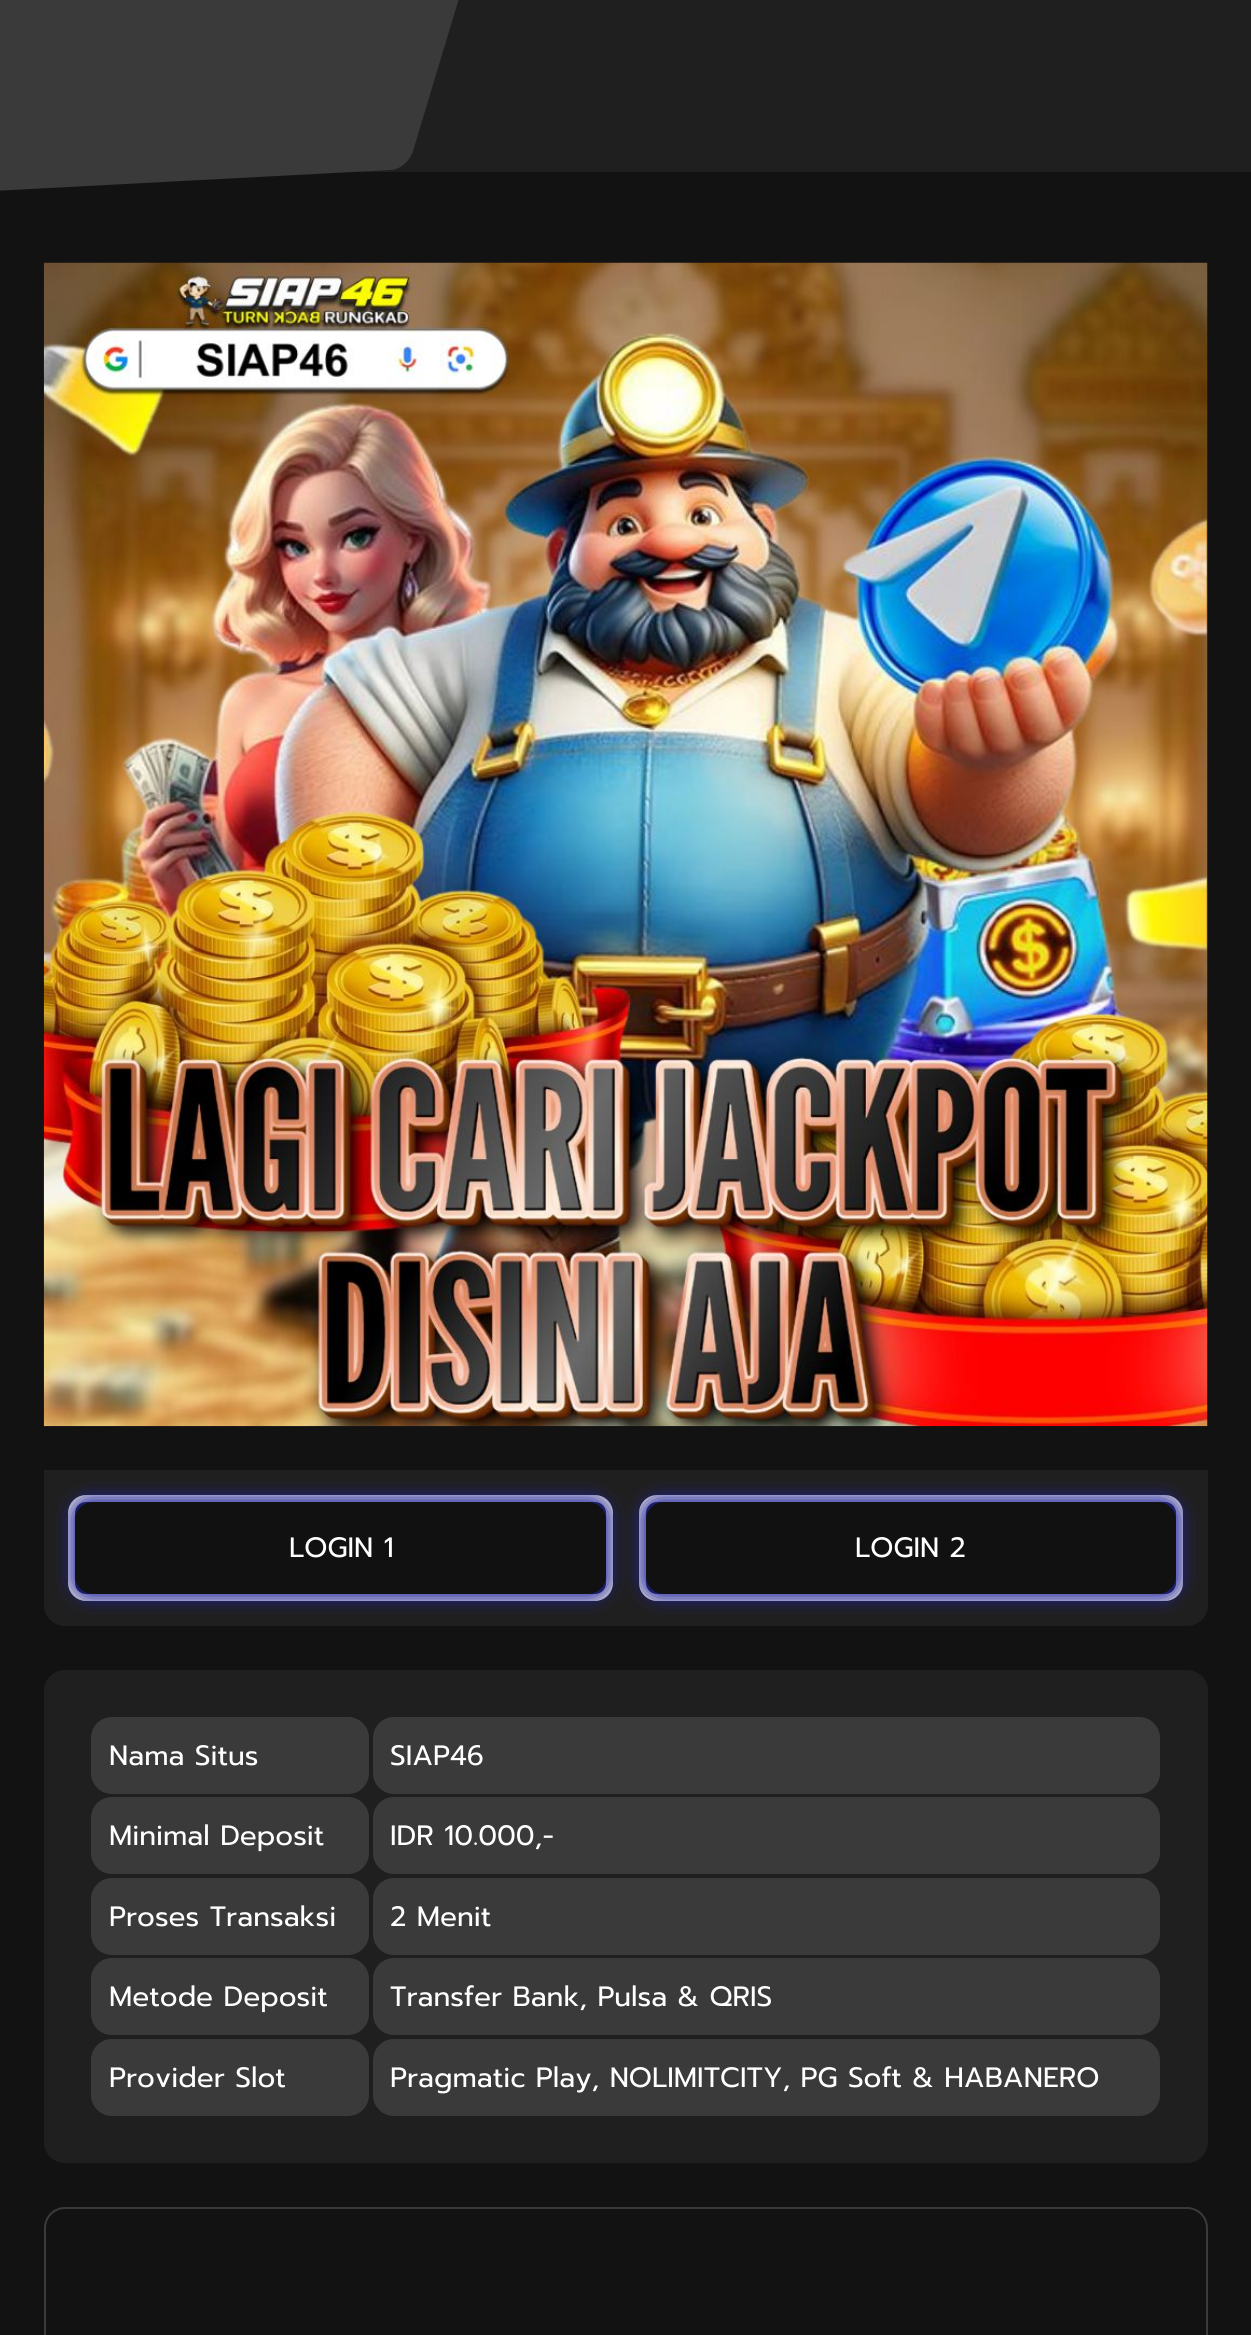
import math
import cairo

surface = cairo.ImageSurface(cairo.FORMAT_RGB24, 1251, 2335)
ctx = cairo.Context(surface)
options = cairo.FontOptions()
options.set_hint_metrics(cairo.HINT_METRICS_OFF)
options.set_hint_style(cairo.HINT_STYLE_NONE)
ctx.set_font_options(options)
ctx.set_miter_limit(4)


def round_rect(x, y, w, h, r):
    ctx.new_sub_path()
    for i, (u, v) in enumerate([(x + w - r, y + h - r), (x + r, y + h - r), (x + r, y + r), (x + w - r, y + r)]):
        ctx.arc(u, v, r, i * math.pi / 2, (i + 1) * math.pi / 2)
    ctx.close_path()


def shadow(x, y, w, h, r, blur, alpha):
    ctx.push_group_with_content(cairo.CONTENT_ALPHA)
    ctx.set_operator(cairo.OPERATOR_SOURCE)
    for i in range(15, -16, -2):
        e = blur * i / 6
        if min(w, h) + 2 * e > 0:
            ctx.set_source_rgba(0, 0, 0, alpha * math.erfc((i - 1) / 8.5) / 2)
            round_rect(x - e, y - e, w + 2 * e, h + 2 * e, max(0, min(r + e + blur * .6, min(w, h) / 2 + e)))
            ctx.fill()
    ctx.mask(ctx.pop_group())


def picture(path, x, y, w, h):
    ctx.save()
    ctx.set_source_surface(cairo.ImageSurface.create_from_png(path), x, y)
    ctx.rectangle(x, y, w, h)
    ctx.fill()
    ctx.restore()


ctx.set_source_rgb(0.071, 0.071, 0.071)
ctx.paint()
ctx.set_source_rgb(0.122, 0.122, 0.122)
ctx.rectangle(353, 0, 898, 172)
ctx.fill()
ctx.set_source_rgb(0.227, 0.227, 0.227)
ctx.new_path()
ctx.move_to(-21, -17)
ctx.line_to(454, -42)
ctx.curve_to(463, -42, 469, -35, 466, -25)
ctx.line_to(413, 151)
ctx.curve_to(410, 161, 400, 170, 390, 170)
ctx.line_to(-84, 195)
ctx.curve_to(-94, 195, -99, 188, -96, 178)
ctx.line_to(-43, 2)
ctx.curve_to(-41, -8, -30, -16, -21, -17)
ctx.close_path()
ctx.fill()
picture("img1.png", 43, 262, 1165, 1165)
ctx.set_source_rgb(0.122, 0.122, 0.122)
ctx.new_path()
ctx.move_to(44, 1470)
ctx.line_to(1208, 1470)
ctx.line_to(1208, 1605)
ctx.curve_to(1208, 1616.5, 1198.5, 1626, 1187, 1626)
ctx.line_to(65, 1626)
ctx.curve_to(53.5, 1626, 44, 1616.5, 44, 1605)
ctx.close_path()
ctx.fill()
ctx.set_source_rgb(0.067, 0.067, 0.067)
round_rect(71.5, 1498.5, 538, 99, 14.5)
ctx.fill_preserve()
ctx.set_source_rgb(0.843, 0.839, 0.839)
ctx.set_line_width(7)
ctx.stroke()
ctx.set_source_rgb(0.133, 0.141, 0.667)
shadow(72, 1498, 537, 100, 18, 9, 1)
ctx.set_source_rgb(0.067, 0.067, 0.067)
round_rect(75, 1502, 531, 92, 18)
ctx.fill()
ctx.select_font_face("Prompt")
ctx.set_font_size(28)
ctx.set_source_rgb(1, 1, 1)
ctx.move_to(289, 1557)
ctx.show_text("LOGIN 1")
ctx.set_source_rgb(0.067, 0.067, 0.067)
round_rect(642.5, 1498.5, 537, 99, 14.5)
ctx.fill_preserve()
ctx.set_source_rgb(0.843, 0.839, 0.839)
ctx.stroke()
ctx.set_source_rgb(0.133, 0.141, 0.667)
shadow(642, 1498, 538, 100, 18, 9, 1)
ctx.set_source_rgb(0.067, 0.067, 0.067)
round_rect(646, 1502, 530, 92, 18)
ctx.fill()
ctx.set_source_rgb(1, 1, 1)
ctx.move_to(855, 1557)
ctx.show_text("LOGIN 2")
ctx.set_source_rgb(0.122, 0.122, 0.122)
round_rect(44, 1670, 1164, 493, 21)
ctx.fill()
ctx.set_source_rgb(0.227, 0.227, 0.227)
round_rect(91, 1717, 278, 77, 21)
ctx.fill()
ctx.set_source_rgb(1, 1, 1)
ctx.move_to(109, 1765)
ctx.show_text("Nama Situs")
ctx.set_source_rgb(0.227, 0.227, 0.227)
round_rect(373, 1717, 787, 77, 21)
ctx.fill()
ctx.set_source_rgb(1, 1, 1)
ctx.move_to(390, 1765)
ctx.show_text("SIAP46")
ctx.set_source_rgb(0.227, 0.227, 0.227)
round_rect(91, 1797, 278, 77, 21)
ctx.fill()
ctx.set_source_rgb(1, 1, 1)
ctx.move_to(109, 1845)
ctx.show_text("Minimal Deposit")
ctx.set_source_rgb(0.227, 0.227, 0.227)
round_rect(373, 1797, 787, 77, 21)
ctx.fill()
ctx.set_source_rgb(1, 1, 1)
ctx.move_to(390, 1845)
ctx.show_text("IDR 10.000,-")
ctx.set_source_rgb(0.227, 0.227, 0.227)
round_rect(91, 1878, 278, 77, 21)
ctx.fill()
ctx.set_source_rgb(1, 1, 1)
ctx.move_to(109, 1926)
ctx.show_text("Proses Transaksi")
ctx.set_source_rgb(0.227, 0.227, 0.227)
round_rect(373, 1878, 787, 77, 21)
ctx.fill()
ctx.set_source_rgb(1, 1, 1)
ctx.move_to(390, 1926)
ctx.show_text("2 Menit")
ctx.set_source_rgb(0.227, 0.227, 0.227)
round_rect(91, 1958, 278, 77, 21)
ctx.fill()
ctx.set_source_rgb(1, 1, 1)
ctx.move_to(109, 2006)
ctx.show_text("Metode Deposit")
ctx.set_source_rgb(0.227, 0.227, 0.227)
round_rect(373, 1958, 787, 77, 21)
ctx.fill()
ctx.set_source_rgb(1, 1, 1)
ctx.move_to(390, 2006)
ctx.show_text("Transfer Bank, Pulsa & QRIS")
ctx.set_source_rgb(0.227, 0.227, 0.227)
round_rect(91, 2039, 278, 77, 21)
ctx.fill()
ctx.set_source_rgb(1, 1, 1)
ctx.move_to(109, 2087)
ctx.show_text("Provider Slot")
ctx.set_source_rgb(0.227, 0.227, 0.227)
round_rect(373, 2039, 787, 77, 21)
ctx.fill()
ctx.set_source_rgb(1, 1, 1)
ctx.move_to(390, 2087)
ctx.show_text("Pragmatic Play, NOLIMITCITY, PG Soft & HABANERO")
round_rect(45, 2208, 1162, 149, 20)
ctx.set_source_rgb(0.227, 0.227, 0.227)
ctx.set_line_width(2)
ctx.stroke()
surface.write_to_png("page.png")
